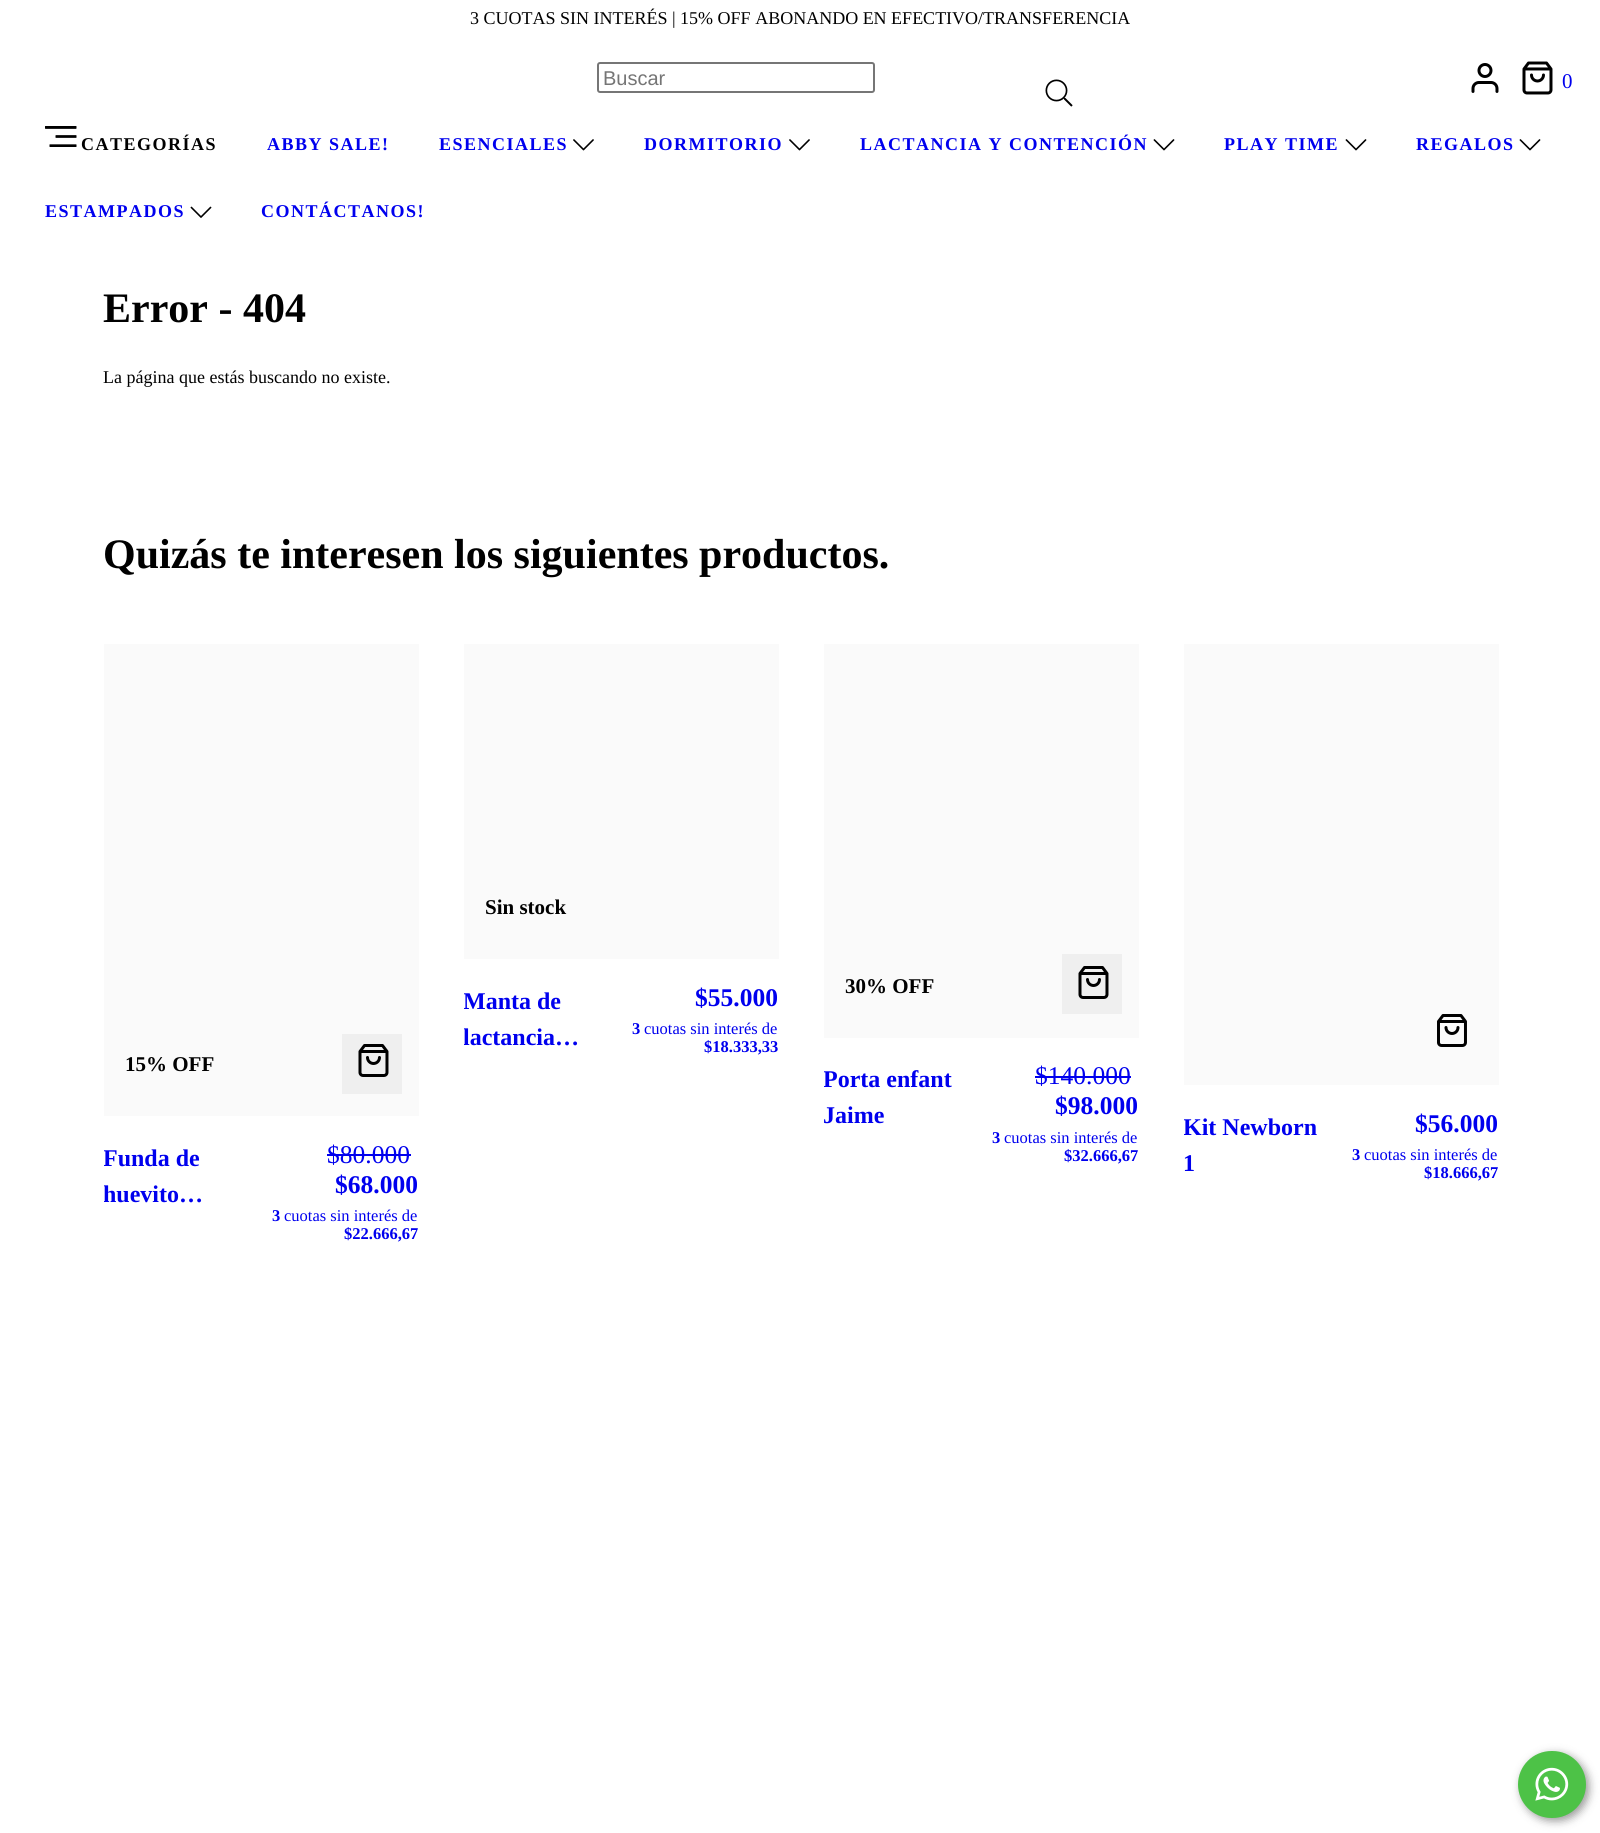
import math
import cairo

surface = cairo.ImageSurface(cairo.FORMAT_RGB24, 1600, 1833)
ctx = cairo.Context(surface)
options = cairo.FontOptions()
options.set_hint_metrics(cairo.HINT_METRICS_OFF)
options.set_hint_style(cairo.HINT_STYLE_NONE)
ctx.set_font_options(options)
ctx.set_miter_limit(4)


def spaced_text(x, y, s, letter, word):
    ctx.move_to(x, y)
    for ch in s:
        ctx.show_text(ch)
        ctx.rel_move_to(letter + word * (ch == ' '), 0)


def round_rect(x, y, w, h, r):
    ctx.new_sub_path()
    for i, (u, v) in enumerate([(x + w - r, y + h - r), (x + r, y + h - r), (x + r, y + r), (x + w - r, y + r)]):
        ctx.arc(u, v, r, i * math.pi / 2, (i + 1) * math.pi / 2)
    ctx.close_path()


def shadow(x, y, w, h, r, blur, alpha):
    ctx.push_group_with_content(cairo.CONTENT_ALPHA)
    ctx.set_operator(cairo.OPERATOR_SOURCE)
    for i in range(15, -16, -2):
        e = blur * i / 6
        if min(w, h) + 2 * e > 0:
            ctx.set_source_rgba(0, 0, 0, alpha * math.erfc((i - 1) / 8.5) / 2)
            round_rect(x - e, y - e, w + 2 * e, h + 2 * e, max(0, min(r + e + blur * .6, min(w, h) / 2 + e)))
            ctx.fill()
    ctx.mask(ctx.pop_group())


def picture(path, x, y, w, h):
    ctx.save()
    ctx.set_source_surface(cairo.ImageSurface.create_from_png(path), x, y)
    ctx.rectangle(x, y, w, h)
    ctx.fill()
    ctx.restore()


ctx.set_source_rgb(1, 1, 1)
ctx.paint()
ctx.select_font_face("Liberation Serif")
ctx.set_font_size(18)
ctx.set_source_rgb(0, 0, 0)
ctx.move_to(470, 24)
ctx.show_text("3 CUOTAS SIN INTERÉS | 15% OFF ABONANDO EN EFECTIVO/TRANSFERENCIA")
round_rect(598, 63, 276, 29, 2)
ctx.set_source_rgb(0.463, 0.463, 0.463)
ctx.stroke()
ctx.select_font_face("Liberation Sans")
ctx.set_font_size(20)
ctx.set_source_rgb(0.459, 0.459, 0.459)
ctx.move_to(603, 85)
ctx.show_text("Buscar")
picture("img1.png", 1045, 79, 28, 28)
picture("img2.png", 1471, 63, 28, 30)
picture("img3.png", 1522, 61, 31, 34)
ctx.select_font_face("Liberation Serif")
ctx.set_font_size(21)
ctx.set_source_rgb(0, 0, 0.933)
ctx.move_to(1562, 88)
ctx.show_text("0")
picture("img4.png", 45, 126, 32, 21)
ctx.select_font_face("Liberation Serif", cairo.FONT_SLANT_NORMAL, cairo.FONT_WEIGHT_BOLD)
ctx.set_font_size(18)
ctx.set_source_rgb(0, 0, 0)
spaced_text(81, 150, "CATEGORÍAS", 1.5, 0)
ctx.set_source_rgb(0, 0, 0.933)
spaced_text(267, 150, "ABBY SALE!", 1.5, 0)
spaced_text(439, 150, "ESENCIALES", 1.5, 0)
picture("img5.png", 573, 139, 21, 12)
spaced_text(644, 150, "DORMITORIO", 1.5, 0)
picture("img5.png", 789, 139, 21, 12)
spaced_text(860, 150, "LACTANCIA Y CONTENCIÓN", 1.5, 0)
picture("img6.png", 1153, 139, 22, 12)
spaced_text(1224, 150, "PLAY TIME", 1.5, 0)
picture("img6.png", 1345, 139, 22, 12)
spaced_text(1416, 150, "REGALOS", 1.5, 0)
picture("img6.png", 1519, 139, 22, 12)
spaced_text(45, 217, "ESTAMPADOS", 1.5, 0)
picture("img7.png", 190, 206, 22, 12)
spaced_text(261, 217, "CONTÁCTANOS!", 1.5, 0)
ctx.set_font_size(42)
ctx.set_source_rgb(0, 0, 0)
ctx.move_to(103, 322)
ctx.show_text("Error - 404")
ctx.select_font_face("Liberation Serif")
ctx.set_font_size(18)
ctx.move_to(103, 383)
ctx.show_text("La página que estás buscando no existe.")
ctx.select_font_face("Liberation Serif", cairo.FONT_SLANT_NORMAL, cairo.FONT_WEIGHT_BOLD)
ctx.set_font_size(42)
ctx.move_to(103, 568)
ctx.show_text("Quizás te interesen los siguientes productos.")
ctx.set_source_rgb(0.98, 0.98, 0.98)
ctx.rectangle(104, 644, 315, 472)
ctx.fill()
ctx.set_font_size(21)
ctx.set_source_rgb(0, 0, 0)
ctx.move_to(125, 1071)
ctx.show_text("15% OFF")
ctx.set_source_rgb(0.937, 0.937, 0.937)
ctx.rectangle(342, 1034, 60, 60)
ctx.fill()
picture("img8.png", 358, 1044, 31, 33)
ctx.save()
ctx.rectangle(104, 1140, 150, 72)
ctx.clip()
ctx.set_font_size(24)
ctx.set_source_rgb(0, 0, 0.933)
ctx.move_to(103, 1166)
ctx.show_text("Funda de")
ctx.move_to(103, 1202)
ctx.show_text("huevito…")
ctx.restore()
ctx.select_font_face("Liberation Serif")
ctx.set_font_size(25.5)
ctx.set_source_rgb(0, 0, 0.933)
ctx.move_to(327, 1163)
ctx.show_text("$80.000")
ctx.rectangle(327, 1154, 84, 2)
ctx.fill()
ctx.select_font_face("Liberation Serif", cairo.FONT_SLANT_NORMAL, cairo.FONT_WEIGHT_BOLD)
ctx.move_to(335, 1193)
ctx.show_text("$68.000")
ctx.set_font_size(16.5)
ctx.move_to(272, 1221)
ctx.show_text("3")
ctx.select_font_face("Liberation Serif")
ctx.move_to(284, 1221)
ctx.show_text("cuotas sin interés de")
ctx.select_font_face("Liberation Serif", cairo.FONT_SLANT_NORMAL, cairo.FONT_WEIGHT_BOLD)
ctx.move_to(344, 1239)
ctx.show_text("$22.666,67")
ctx.set_source_rgb(0.98, 0.98, 0.98)
ctx.rectangle(464, 644, 315, 315)
ctx.fill()
ctx.set_font_size(21)
ctx.set_source_rgb(0, 0, 0)
ctx.move_to(485, 914)
ctx.show_text("Sin stock")
ctx.save()
ctx.rectangle(464, 983, 150, 72)
ctx.clip()
ctx.set_font_size(24)
ctx.set_source_rgb(0, 0, 0.933)
ctx.move_to(463, 1009)
ctx.show_text("Manta de")
ctx.move_to(463, 1045)
ctx.show_text("lactancia…")
ctx.restore()
ctx.set_font_size(25.5)
ctx.set_source_rgb(0, 0, 0.933)
ctx.move_to(695, 1006)
ctx.show_text("$55.000")
ctx.set_font_size(16.5)
ctx.move_to(632, 1034)
ctx.show_text("3")
ctx.select_font_face("Liberation Serif")
ctx.move_to(644, 1034)
ctx.show_text("cuotas sin interés de")
ctx.select_font_face("Liberation Serif", cairo.FONT_SLANT_NORMAL, cairo.FONT_WEIGHT_BOLD)
ctx.move_to(704, 1052)
ctx.show_text("$18.333,33")
ctx.set_source_rgb(0.98, 0.98, 0.98)
ctx.rectangle(824, 644, 315, 394)
ctx.fill()
ctx.set_font_size(21)
ctx.set_source_rgb(0, 0, 0)
ctx.move_to(845, 993)
ctx.show_text("30% OFF")
ctx.set_source_rgb(0.937, 0.937, 0.937)
ctx.rectangle(1062, 954, 60, 60)
ctx.fill()
picture("img8.png", 1078, 966, 31, 33)
ctx.save()
ctx.rectangle(824, 1062, 150, 72)
ctx.clip()
ctx.set_font_size(24)
ctx.set_source_rgb(0, 0, 0.933)
ctx.move_to(823, 1087)
ctx.show_text("Porta enfant")
ctx.move_to(823, 1123)
ctx.show_text("Jaime")
ctx.restore()
ctx.select_font_face("Liberation Serif")
ctx.set_font_size(25.5)
ctx.set_source_rgb(0, 0, 0.933)
ctx.move_to(1035, 1084)
ctx.show_text("$140.000")
ctx.rectangle(1035, 1076, 96, 2)
ctx.fill()
ctx.select_font_face("Liberation Serif", cairo.FONT_SLANT_NORMAL, cairo.FONT_WEIGHT_BOLD)
ctx.move_to(1055, 1114)
ctx.show_text("$98.000")
ctx.set_font_size(16.5)
ctx.move_to(992, 1143)
ctx.show_text("3")
ctx.select_font_face("Liberation Serif")
ctx.move_to(1004, 1143)
ctx.show_text("cuotas sin interés de")
ctx.select_font_face("Liberation Serif", cairo.FONT_SLANT_NORMAL, cairo.FONT_WEIGHT_BOLD)
ctx.move_to(1064, 1161)
ctx.show_text("$32.666,67")
ctx.set_source_rgb(0.98, 0.98, 0.98)
ctx.rectangle(1184, 644, 315, 441)
ctx.fill()
picture("img9.png", 1437, 1014, 30, 33)
ctx.save()
ctx.rectangle(1184, 1109, 150, 72)
ctx.clip()
ctx.set_font_size(24)
ctx.set_source_rgb(0, 0, 0.933)
ctx.move_to(1183, 1135)
ctx.show_text("Kit Newborn")
ctx.restore()
ctx.set_font_size(24)
ctx.set_source_rgb(0, 0, 0.933)
ctx.move_to(1183, 1171)
ctx.show_text("1")
ctx.set_font_size(25.5)
ctx.move_to(1415, 1132)
ctx.show_text("$56.000")
ctx.set_font_size(16.5)
ctx.move_to(1352, 1160)
ctx.show_text("3")
ctx.select_font_face("Liberation Serif")
ctx.move_to(1364, 1160)
ctx.show_text("cuotas sin interés de")
ctx.select_font_face("Liberation Serif", cairo.FONT_SLANT_NORMAL, cairo.FONT_WEIGHT_BOLD)
ctx.move_to(1424, 1178)
ctx.show_text("$18.666,67")
ctx.set_source_rgb(0, 0, 0)
shadow(1521, 1754, 68, 67, 33.5, 4.5, 0.4)
ctx.set_source_rgb(0.302, 0.761, 0.278)
round_rect(1518, 1751, 68, 67, 33.5)
ctx.fill()
picture("img10.png", 1535, 1767, 34, 34)
surface.write_to_png("page.png")
